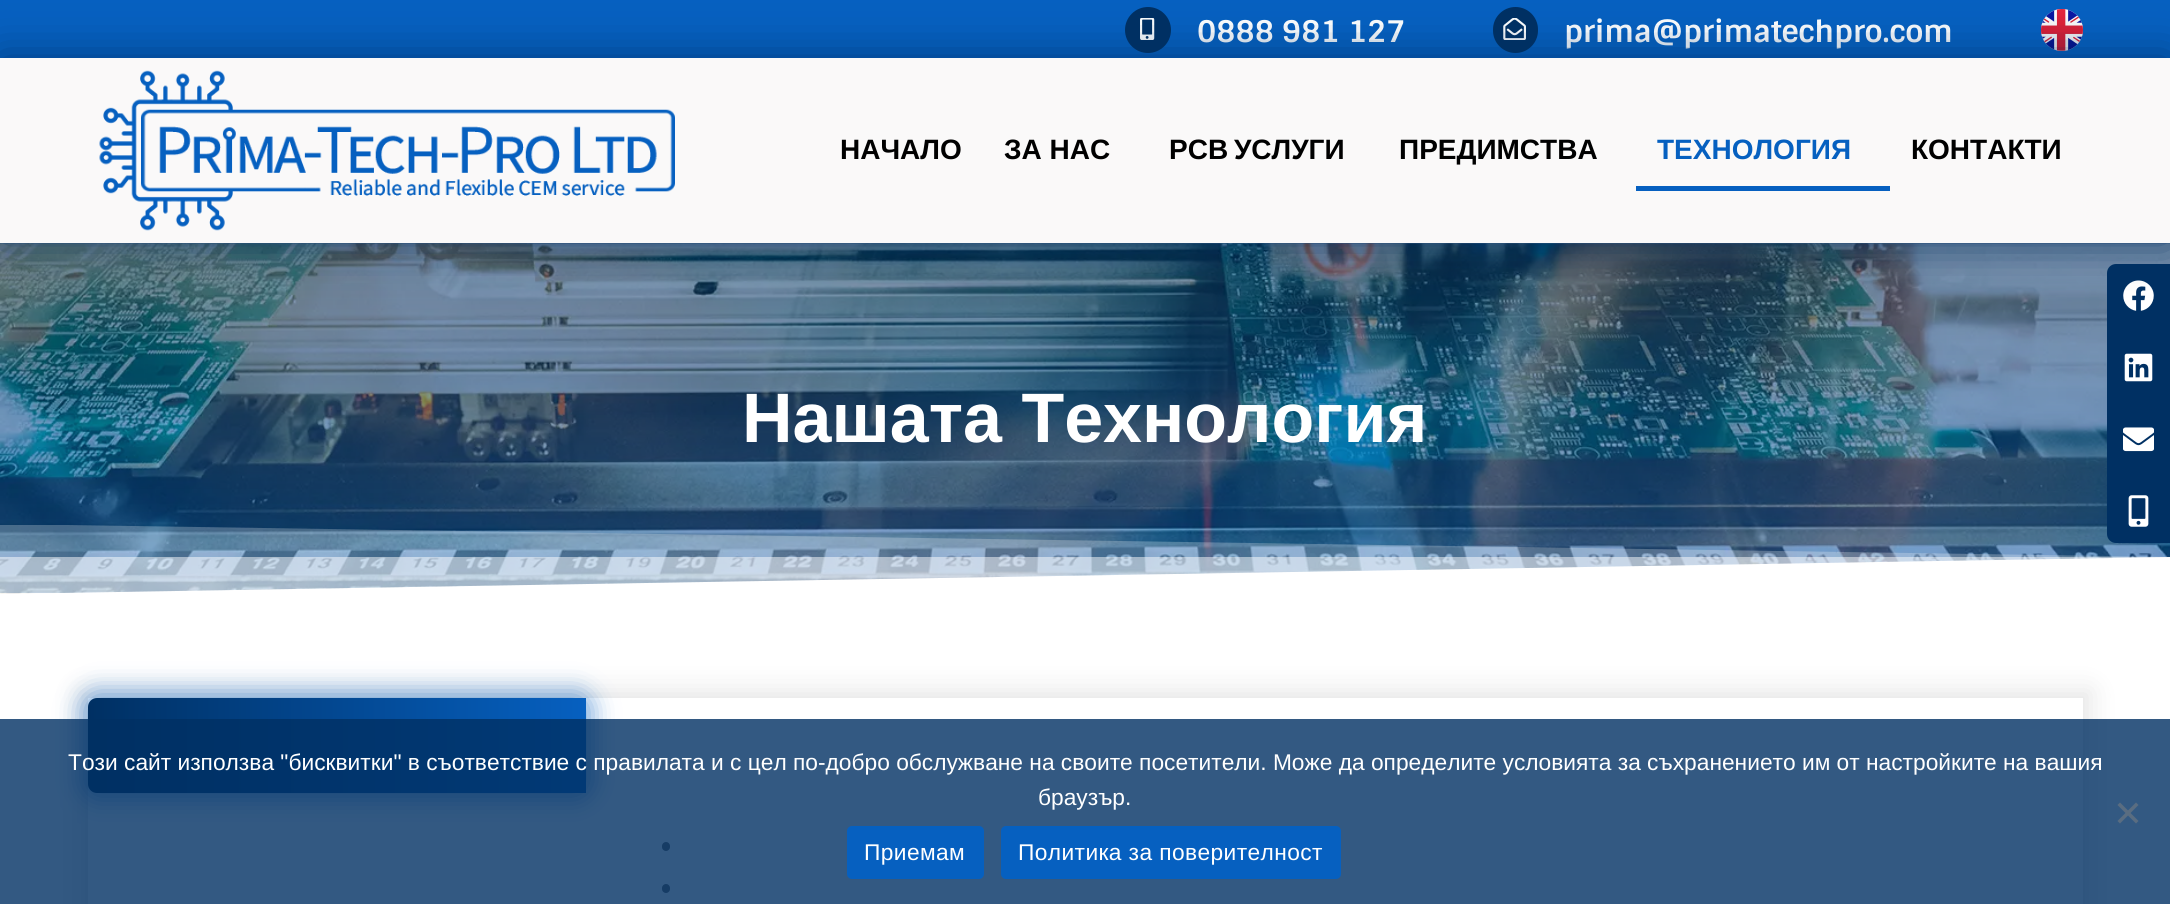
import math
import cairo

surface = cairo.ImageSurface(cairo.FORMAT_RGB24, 2170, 904)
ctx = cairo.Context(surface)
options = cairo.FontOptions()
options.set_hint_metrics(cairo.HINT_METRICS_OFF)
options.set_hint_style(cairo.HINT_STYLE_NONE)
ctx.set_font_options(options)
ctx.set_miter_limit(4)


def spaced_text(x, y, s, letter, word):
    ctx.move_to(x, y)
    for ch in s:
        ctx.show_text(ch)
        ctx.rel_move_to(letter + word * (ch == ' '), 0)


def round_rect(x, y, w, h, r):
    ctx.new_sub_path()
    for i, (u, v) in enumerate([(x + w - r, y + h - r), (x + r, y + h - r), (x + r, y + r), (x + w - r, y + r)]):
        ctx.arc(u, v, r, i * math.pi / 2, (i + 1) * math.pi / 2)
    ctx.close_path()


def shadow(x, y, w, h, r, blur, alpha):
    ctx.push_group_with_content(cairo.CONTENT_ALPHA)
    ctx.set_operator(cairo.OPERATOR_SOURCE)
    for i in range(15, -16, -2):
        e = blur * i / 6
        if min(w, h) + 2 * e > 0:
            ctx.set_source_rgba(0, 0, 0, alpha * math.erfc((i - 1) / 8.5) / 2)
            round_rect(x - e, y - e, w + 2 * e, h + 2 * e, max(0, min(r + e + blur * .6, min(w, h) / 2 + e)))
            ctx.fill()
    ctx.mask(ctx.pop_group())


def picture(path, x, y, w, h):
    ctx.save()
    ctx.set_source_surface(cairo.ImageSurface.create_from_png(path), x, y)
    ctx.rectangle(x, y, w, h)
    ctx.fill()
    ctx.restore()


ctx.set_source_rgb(1, 1, 1)
ctx.paint()
ctx.set_source_rgb(0.024, 0.376, 0.753)
ctx.rectangle(0, 0, 2170, 58)
ctx.fill()
ctx.set_source_rgb(0, 0.188, 0.388)
ctx.arc(1148, 30, 23, 0, 2 * math.pi)
ctx.fill()
picture("img1.png", 1140, 18, 15, 22)
ctx.select_font_face("Sintony", cairo.FONT_SLANT_NORMAL, cairo.FONT_WEIGHT_BOLD)
ctx.set_font_size(29.75)
ctx.set_source_rgb(1, 1, 1)
ctx.move_to(1197, 42)
ctx.show_text("0888 981 127")
ctx.set_source_rgb(0, 0.188, 0.388)
round_rect(1493, 7, 45, 46, 22.5)
ctx.fill()
picture("img2.png", 1503, 18, 23, 22)
ctx.set_source_rgb(1, 1, 1)
ctx.move_to(1564, 42)
ctx.show_text("prima@primatechpro.com")
picture("img3.png", 2041, 9, 42, 42)
gradient = cairo.LinearGradient(1085, 243, 1085, 593)
gradient.add_color_stop_rgba(0, 0.502, 0.596, 0.694, 1)
gradient.add_color_stop_rgba(1, 0.514, 0.69, 0.878, 1)
ctx.set_source(gradient)
ctx.rectangle(0, 243, 2170, 1)
ctx.fill()
picture("img5.png", 0, 243, 2170, 351)
gradient = cairo.LinearGradient(1107, 243, 1107, 600)
gradient.add_color_stop_rgba(0, 0, 0.188, 0.388, 0.5)
gradient.add_color_stop_rgba(1, 0.024, 0.376, 0.753, 0.5)
ctx.set_source(gradient)
ctx.rectangle(0, 243, 2170, 350)
ctx.fill()
ctx.set_source_rgb(1, 1, 1)
ctx.new_path()
ctx.move_to(-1, 594)
ctx.line_to(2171, 594)
ctx.line_to(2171, 557)
ctx.close_path()
ctx.fill()
ctx.set_source_rgba(1, 1, 1, 0.5)
ctx.rectangle(0, 557, 2170, 37)
ctx.fill()
ctx.save()
ctx.rectangle(0, 525, 2170, 70)
ctx.clip()
ctx.set_source_rgba(1, 1, 1, 0.25)
ctx.new_path()
ctx.move_to(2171, 594)
ctx.line_to(-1, 594)
ctx.line_to(-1, 524)
ctx.line_to(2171, 557)
ctx.close_path()
ctx.fill()
ctx.restore()
ctx.set_source_rgb(0, 0.188, 0.388)
ctx.new_path()
ctx.move_to(2116, 264)
ctx.line_to(2170, 264)
ctx.line_to(2170, 543)
ctx.line_to(2116, 543)
ctx.curve_to(2111, 543, 2107, 539, 2107, 534)
ctx.line_to(2107, 273)
ctx.curve_to(2107, 268, 2111, 264, 2116, 264)
ctx.close_path()
ctx.fill()
picture("img6.png", 2123, 280, 31, 31)
ctx.set_source_rgb(0, 0.188, 0.388)
shadow(0, 58, 2170, 185, 0, 22, 0.72)
ctx.set_source_rgb(0.98, 0.976, 0.976)
ctx.rectangle(0, 58, 2170, 185)
ctx.fill()
picture("img4.png", 99, 70, 576, 161)
ctx.select_font_face("Liberation Sans", cairo.FONT_SLANT_NORMAL, cairo.FONT_WEIGHT_BOLD)
ctx.set_font_size(28)
ctx.set_source_rgb(0, 0, 0)
ctx.move_to(840, 159)
ctx.show_text("НАЧАЛО")
ctx.move_to(1004, 159)
ctx.show_text("ЗА НАС")
spaced_text(1169, 159, "PCB УСЛУГИ", 0, -2)
ctx.move_to(1399, 159)
ctx.show_text("ПРЕДИМСТВА")
ctx.set_source_rgb(0.024, 0.376, 0.753)
ctx.move_to(1657, 159)
ctx.show_text("ТЕХНОЛОГИЯ")
ctx.rectangle(1636, 186, 254, 5)
ctx.fill()
ctx.set_source_rgb(0, 0, 0)
ctx.move_to(1911, 159)
ctx.show_text("КОНТАКТИ")
ctx.set_font_size(70)
ctx.set_source_rgb(1, 1, 1)
ctx.move_to(742, 442)
ctx.show_text("Нашата Технология")
ctx.save()
ctx.set_fill_rule(cairo.FILL_RULE_EVEN_ODD)
ctx.new_path()
ctx.move_to(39, 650)
ctx.line_to(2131, 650)
ctx.line_to(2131, 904)
ctx.line_to(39, 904)
ctx.close_path()
ctx.move_to(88, 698)
ctx.line_to(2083, 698)
ctx.line_to(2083, 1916)
ctx.line_to(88, 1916)
ctx.close_path()
ctx.clip()
ctx.set_source_rgb(0, 0, 0)
shadow(79, 690, 2012, 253, 0, 13, 0.1)
ctx.restore()
ctx.set_source_rgb(0.024, 0.376, 0.753)
shadow(81, 691, 512, 109, 16, 12, 0.51)
gradient = cairo.LinearGradient(88, 746, 586, 746)
gradient.add_color_stop_rgba(0, 0, 0.188, 0.388, 1)
gradient.add_color_stop_rgba(1, 0.024, 0.376, 0.753, 1)
ctx.set_source(gradient)
ctx.new_path()
ctx.move_to(97, 698)
ctx.line_to(586, 698)
ctx.line_to(586, 793)
ctx.line_to(97, 793)
ctx.curve_to(92, 793, 88, 789, 88, 784)
ctx.line_to(88, 707)
ctx.curve_to(88, 702, 92, 698, 97, 698)
ctx.close_path()
ctx.fill()
ctx.set_source_rgb(0.439, 0.439, 0.439)
round_rect(662, 842, 8, 9, 4)
ctx.fill()
round_rect(662, 884, 8, 9, 4)
ctx.fill()
picture("img7.png", 2124, 353, 29, 29)
picture("img8.png", 2123, 427, 31, 25)
picture("img9.png", 2128, 495, 21, 32)
ctx.set_source_rgba(0, 0.188, 0.388, 0.8)
ctx.rectangle(0, 719, 2170, 185)
ctx.fill()
ctx.select_font_face("Liberation Sans")
ctx.set_font_size(22.75)
ctx.set_source_rgb(1, 1, 1)
ctx.move_to(68, 770)
ctx.show_text("Този сайт използва \"бисквитки\" в съответствие с правилата и с цел по-добро обслужване на своите посетители. Може да определите условията за съхранението им от настройките на вашия")
ctx.move_to(1038, 805)
ctx.show_text("браузър.")
ctx.set_source_rgb(0.353, 0.427, 0.506)
ctx.new_path()
ctx.move_to(2136, 802.5)
ctx.line_to(2138.5, 805)
ctx.line_to(2120, 823.5)
ctx.line_to(2117.5, 821)
ctx.close_path()
ctx.fill()
ctx.new_path()
ctx.move_to(2117.5, 805)
ctx.line_to(2120, 802.5)
ctx.line_to(2138.5, 821)
ctx.line_to(2136, 823.5)
ctx.close_path()
ctx.fill()
ctx.set_source_rgb(0.024, 0.376, 0.753)
round_rect(847, 826, 137, 53, 5)
ctx.fill()
ctx.set_source_rgb(1, 1, 1)
spaced_text(864, 860, "Приемам", 0.4, 0)
ctx.set_source_rgb(0.024, 0.376, 0.753)
round_rect(1001, 826, 340, 53, 5)
ctx.fill()
ctx.set_source_rgb(1, 1, 1)
spaced_text(1018, 860, "Политика за поверителност", 0.4, 0)
surface.write_to_png("page.png")
